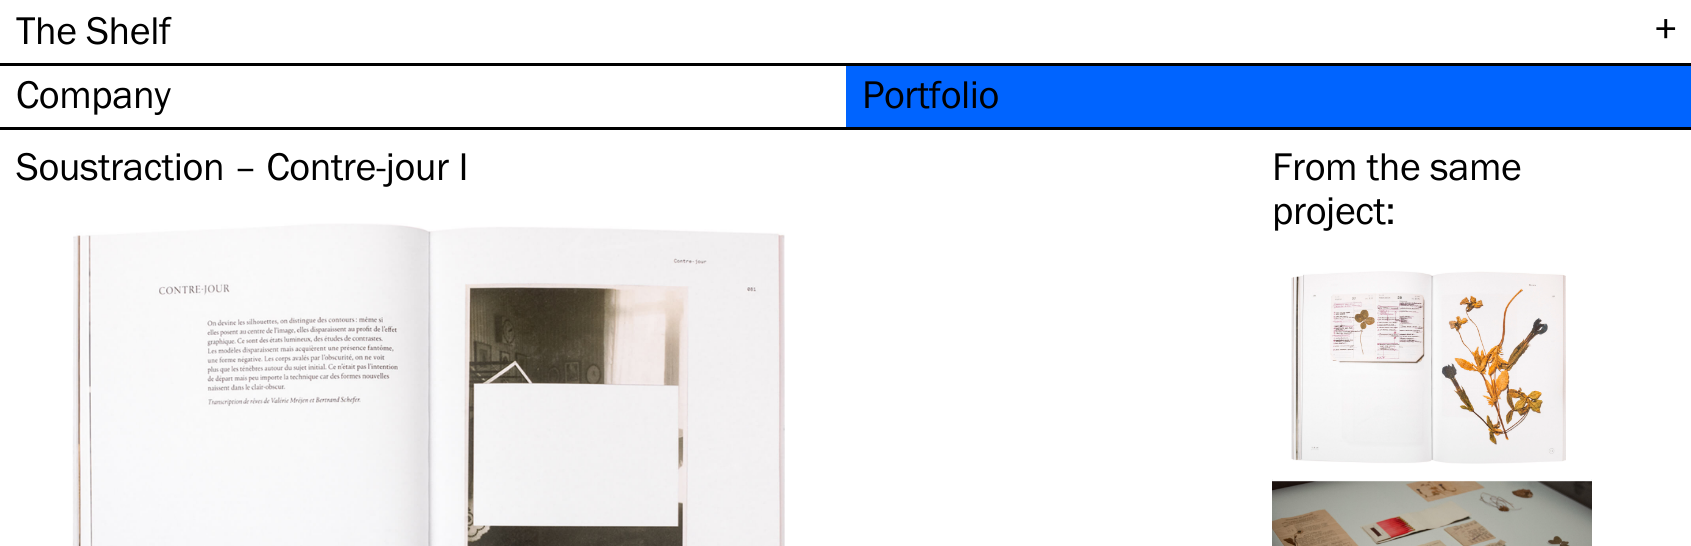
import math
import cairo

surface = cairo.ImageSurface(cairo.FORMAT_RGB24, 1691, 546)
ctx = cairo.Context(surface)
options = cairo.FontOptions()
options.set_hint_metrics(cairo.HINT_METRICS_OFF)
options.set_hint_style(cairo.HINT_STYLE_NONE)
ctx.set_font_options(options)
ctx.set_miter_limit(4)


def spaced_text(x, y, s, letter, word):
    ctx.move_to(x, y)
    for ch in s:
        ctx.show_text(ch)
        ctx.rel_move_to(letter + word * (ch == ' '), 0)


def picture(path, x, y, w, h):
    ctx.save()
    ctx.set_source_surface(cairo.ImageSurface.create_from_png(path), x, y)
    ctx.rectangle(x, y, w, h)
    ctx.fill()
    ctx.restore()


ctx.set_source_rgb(1, 1, 1)
ctx.paint()
ctx.set_source_rgb(0, 0, 0)
ctx.rectangle(0, 63, 1691, 3)
ctx.fill()
ctx.select_font_face("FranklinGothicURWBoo")
ctx.set_font_size(40)
spaced_text(16, 44, "The Shelf", -0.4, 0)
spaced_text(1654, 42, "+", -0.4, 0)
ctx.rectangle(0, 127, 1691, 3)
ctx.fill()
spaced_text(16, 108, "Company", -0.4, 0)
ctx.set_source_rgb(0, 0.392, 1)
ctx.rectangle(846, 66, 845, 61)
ctx.fill()
ctx.set_source_rgb(0, 0, 0)
spaced_text(862, 108, "Portfolio", -0.4, 0)
spaced_text(16, 180, "Soustraction – Contre-jour I", -0.4, 0)
picture("img1.png", 72, 223, 713, 323)
spaced_text(1272, 180, "From the same", -0.4, 0)
spaced_text(1272, 224, "project:", -0.4, 0)
picture("img2.png", 1291, 271, 275, 193)
picture("img3.png", 1272, 479, 320, 67)
surface.write_to_png("page.png")
